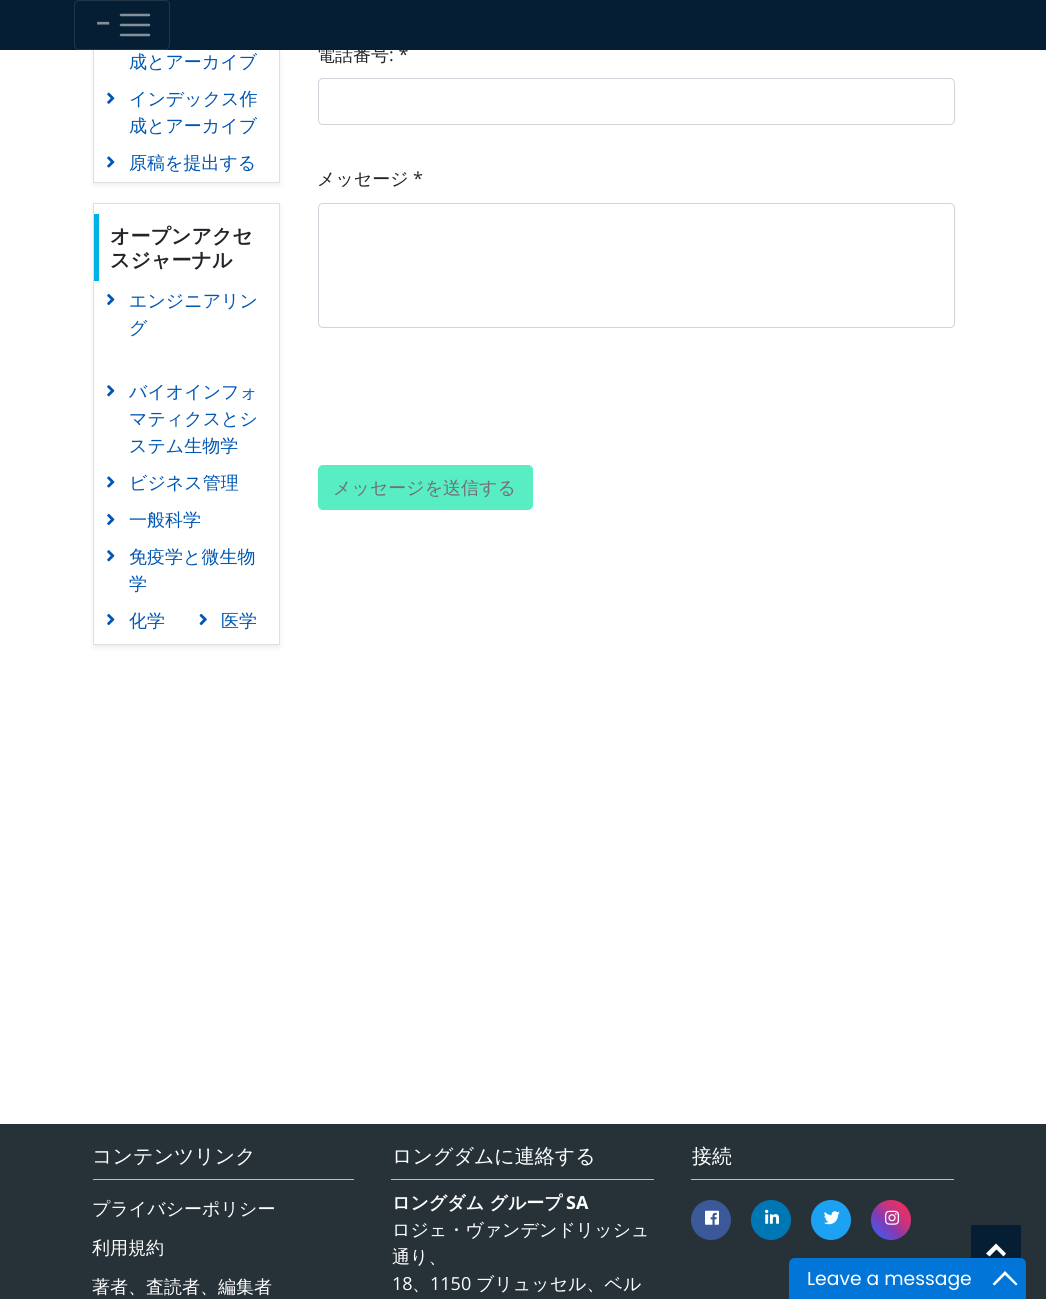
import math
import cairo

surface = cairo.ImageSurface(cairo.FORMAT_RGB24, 1046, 1299)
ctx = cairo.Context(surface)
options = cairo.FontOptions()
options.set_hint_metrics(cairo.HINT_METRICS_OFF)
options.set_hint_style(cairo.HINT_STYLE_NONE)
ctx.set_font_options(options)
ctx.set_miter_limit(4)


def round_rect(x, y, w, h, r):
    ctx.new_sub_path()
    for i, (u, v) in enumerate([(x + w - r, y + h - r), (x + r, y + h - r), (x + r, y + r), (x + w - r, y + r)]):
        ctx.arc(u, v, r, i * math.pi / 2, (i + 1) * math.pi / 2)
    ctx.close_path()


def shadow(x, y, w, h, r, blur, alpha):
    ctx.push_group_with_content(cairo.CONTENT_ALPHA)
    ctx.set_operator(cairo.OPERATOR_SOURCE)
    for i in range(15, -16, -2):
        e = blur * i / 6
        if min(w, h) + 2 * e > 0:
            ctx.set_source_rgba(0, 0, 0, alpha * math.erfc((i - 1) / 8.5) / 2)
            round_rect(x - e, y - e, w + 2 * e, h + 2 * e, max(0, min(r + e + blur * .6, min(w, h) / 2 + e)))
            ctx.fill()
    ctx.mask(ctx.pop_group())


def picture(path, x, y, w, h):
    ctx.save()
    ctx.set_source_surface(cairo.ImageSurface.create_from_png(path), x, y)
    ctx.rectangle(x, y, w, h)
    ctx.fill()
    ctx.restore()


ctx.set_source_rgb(1, 1, 1)
ctx.paint()
ctx.set_source_rgb(0, 0, 0)
shadow(93, -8, 187, 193, 0, 2.5, 0.07)
ctx.set_source_rgb(1, 1, 1)
ctx.rectangle(94, 50, 185, 132)
ctx.fill()
ctx.rectangle(93.5, -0.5, 186, 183)
ctx.set_source_rgb(0.875, 0.875, 0.875)
ctx.set_line_width(1)
ctx.stroke()
ctx.select_font_face("WenQuanYi Zen Hei Medium")
ctx.set_font_size(18)
ctx.set_source_rgb(0.129, 0.145, 0.161)
ctx.move_to(317, 61)
ctx.show_text("電話番号")
ctx.select_font_face("Open Sans")
ctx.move_to(389, 61)
ctx.show_text(": *")
ctx.set_source_rgb(0.027, 0.118, 0.2)
ctx.rectangle(0, 0, 1046, 50)
ctx.fill()
round_rect(74.5, 0.5, 95, 49, 4.5)
ctx.set_source_rgb(0.125, 0.208, 0.278)
ctx.stroke()
ctx.select_font_face("Open Sans", cairo.FONT_SLANT_NORMAL, cairo.FONT_WEIGHT_BOLD)
ctx.set_font_size(25)
ctx.set_source_rgb(0.514, 0.561, 0.6)
ctx.move_to(96, 32)
ctx.show_text("−")
ctx.new_path()
ctx.move_to(121, 15)
ctx.line_to(149, 15)
ctx.move_to(121, 25)
ctx.line_to(149, 25)
ctx.move_to(121, 35)
ctx.line_to(149, 35)
ctx.set_line_width(2.5)
ctx.set_line_cap(cairo.LINE_CAP_ROUND)
ctx.stroke()
ctx.select_font_face("WenQuanYi Zen Hei Medium")
ctx.set_font_size(18)
ctx.set_source_rgb(0, 0.337, 0.702)
ctx.move_to(129, 68)
ctx.show_text("成とアーカイブ")
picture("img1.png", 107, 92, 8, 12)
ctx.move_to(129, 105)
ctx.show_text("インデックス作")
ctx.move_to(129, 132)
ctx.show_text("成とアーカイブ")
picture("img2.png", 107, 156, 8, 12)
ctx.move_to(129, 169)
ctx.show_text("原稿を提出する")
ctx.save()
ctx.set_fill_rule(cairo.FILL_RULE_EVEN_ODD)
ctx.new_path()
ctx.move_to(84, 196)
ctx.line_to(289, 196)
ctx.line_to(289, 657)
ctx.line_to(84, 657)
ctx.close_path()
ctx.move_to(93, 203)
ctx.line_to(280, 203)
ctx.line_to(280, 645)
ctx.line_to(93, 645)
ctx.close_path()
ctx.clip()
ctx.set_source_rgb(0, 0, 0)
shadow(93, 205, 187, 443, 0, 2.5, 0.07)
ctx.restore()
ctx.rectangle(93.5, 203.5, 186, 441)
ctx.set_source_rgb(0.875, 0.875, 0.875)
ctx.set_line_width(1)
ctx.set_line_cap(cairo.LINE_CAP_BUTT)
ctx.stroke()
ctx.set_source_rgb(0, 0.694, 0.894)
ctx.rectangle(94, 214, 5, 67)
ctx.fill()
ctx.select_font_face("WenQuanYi Zen Hei", cairo.FONT_SLANT_NORMAL, cairo.FONT_WEIGHT_BOLD)
ctx.set_font_size(20)
ctx.set_source_rgb(0.129, 0.145, 0.161)
ctx.move_to(110, 243)
ctx.show_text("オープンアクセ")
ctx.move_to(110, 267)
ctx.show_text("スジャーナル")
picture("img3.png", 107, 293, 8, 13)
ctx.select_font_face("WenQuanYi Zen Hei Medium")
ctx.set_font_size(18)
ctx.set_source_rgb(0, 0.337, 0.702)
ctx.move_to(129, 307)
ctx.show_text("エンジニアリン")
ctx.move_to(129, 334)
ctx.show_text("グ")
picture("img4.png", 107, 385, 8, 12)
ctx.move_to(129, 398)
ctx.show_text("バイオインフォ")
ctx.move_to(129, 425)
ctx.show_text("マティクスとシ")
ctx.move_to(129, 452)
ctx.show_text("ステム生物学")
picture("img2.png", 107, 476, 8, 12)
ctx.move_to(129, 489)
ctx.show_text("ビジネス管理")
picture("img3.png", 107, 513, 8, 13)
ctx.move_to(129, 526)
ctx.show_text("一般科学")
picture("img4.png", 107, 550, 8, 12)
ctx.move_to(129, 563)
ctx.show_text("免疫学と微生物")
ctx.move_to(129, 590)
ctx.show_text("学")
picture("img3.png", 107, 613, 8, 13)
ctx.move_to(129, 627)
ctx.show_text("化学")
picture("img5.png", 199, 613, 8, 13)
ctx.move_to(221, 627)
ctx.show_text("医学")
round_rect(318.5, 78.5, 636, 46, 4.5)
ctx.set_source_rgb(0.808, 0.831, 0.855)
ctx.stroke()
ctx.set_source_rgb(0.129, 0.145, 0.161)
ctx.move_to(317, 185)
ctx.show_text("メッセージ")
ctx.select_font_face("Open Sans")
ctx.move_to(413, 185)
ctx.show_text("*")
round_rect(318.5, 203.5, 636, 124, 4.5)
ctx.set_source_rgb(0.808, 0.831, 0.855)
ctx.stroke()
ctx.set_source_rgb(0.349, 0.929, 0.765)
round_rect(318.5, 465.5, 214, 44, 4.5)
ctx.fill_preserve()
ctx.stroke()
ctx.select_font_face("WenQuanYi Zen Hei Medium")
ctx.set_source_rgb(0.435, 0.443, 0.455)
ctx.move_to(333, 494)
ctx.show_text("メッセージを送信する")
ctx.set_source_rgb(0.149, 0.196, 0.22)
ctx.rectangle(0, 1124, 1046, 175)
ctx.fill()
ctx.set_source_rgb(0.741, 0.741, 0.741)
ctx.rectangle(93, 1179, 261, 1)
ctx.fill()
ctx.set_font_size(20)
ctx.set_source_rgb(1, 1, 1)
ctx.move_to(92, 1163)
ctx.show_text("コンテンツリンク")
ctx.set_font_size(18)
ctx.move_to(92, 1215)
ctx.show_text("プライバシーポリシー")
ctx.move_to(92, 1254)
ctx.show_text("利用規約")
ctx.move_to(92, 1293)
ctx.show_text("著者、査読者、編集者")
ctx.set_source_rgb(0.741, 0.741, 0.741)
ctx.rectangle(391, 1179, 263, 1)
ctx.fill()
ctx.set_font_size(20)
ctx.set_source_rgb(1, 1, 1)
ctx.move_to(392, 1163)
ctx.show_text("ロングダムに連絡する")
ctx.select_font_face("WenQuanYi Zen Hei", cairo.FONT_SLANT_NORMAL, cairo.FONT_WEIGHT_BOLD)
ctx.set_font_size(18)
ctx.move_to(392, 1209)
ctx.show_text("ロングダム グループ")
ctx.select_font_face("Open Sans", cairo.FONT_SLANT_NORMAL, cairo.FONT_WEIGHT_BOLD)
ctx.move_to(566, 1209)
ctx.show_text("SA")
ctx.select_font_face("WenQuanYi Zen Hei Medium")
ctx.move_to(392, 1236)
ctx.show_text("ロジェ・ヴァンデンドリッシュ")
ctx.move_to(392, 1263)
ctx.show_text("通り、")
ctx.select_font_face("Open Sans")
ctx.move_to(392, 1290)
ctx.show_text("18")
ctx.select_font_face("WenQuanYi Zen Hei Medium")
ctx.move_to(412, 1290)
ctx.show_text("、")
ctx.select_font_face("Open Sans")
ctx.move_to(430, 1290)
ctx.show_text("1150")
ctx.select_font_face("WenQuanYi Zen Hei Medium")
ctx.move_to(476, 1290)
ctx.show_text("ブリュッセル、ベル")
ctx.set_source_rgb(0.741, 0.741, 0.741)
ctx.rectangle(691, 1179, 263, 1)
ctx.fill()
ctx.set_font_size(20)
ctx.set_source_rgb(1, 1, 1)
ctx.move_to(692, 1163)
ctx.show_text("接続")
ctx.set_source_rgb(0.231, 0.349, 0.596)
ctx.new_path()
ctx.arc(711, 1220, 20, 0, 2 * math.pi)
ctx.fill()
picture("img6.png", 705, 1210, 14, 15)
ctx.set_source_rgb(0, 0.467, 0.71)
ctx.arc(771, 1220, 20, 0, 2 * math.pi)
ctx.fill()
picture("img7.png", 765, 1209, 14, 15)
ctx.set_source_rgb(0.114, 0.631, 0.949)
ctx.arc(831, 1220, 20, 0, 2 * math.pi)
ctx.fill()
picture("img8.png", 824, 1211, 16, 14)
gradient = cairo.LinearGradient(871, 1240, 911, 1200)
gradient.add_color_stop_rgba(0, 0.251, 0.365, 0.902, 1)
gradient.add_color_stop_rgba(0.2, 0.345, 0.318, 0.859, 1)
gradient.add_color_stop_rgba(0.4, 0.514, 0.227, 0.706, 1)
gradient.add_color_stop_rgba(0.6, 0.757, 0.208, 0.518, 1)
gradient.add_color_stop_rgba(0.8, 0.882, 0.188, 0.424, 1)
gradient.add_color_stop_rgba(1, 0.992, 0.114, 0.114, 1)
ctx.set_source(gradient)
ctx.arc(891, 1220, 20, 0, 2 * math.pi)
ctx.fill()
picture("img9.png", 885, 1210, 15, 15)
ctx.set_source_rgb(0.027, 0.118, 0.2)
ctx.rectangle(971, 1225, 50, 34)
ctx.fill()
ctx.set_source_rgb(1, 1, 1)
ctx.new_path()
ctx.move_to(996, 1243.5)
ctx.line_to(1006, 1253.5)
ctx.line_to(1003.5, 1256.5)
ctx.line_to(996.5, 1249.5)
ctx.line_to(989.5, 1256.5)
ctx.line_to(986, 1253.5)
ctx.close_path()
ctx.fill()
ctx.set_source_rgb(0.008, 0.459, 0.847)
ctx.new_path()
ctx.move_to(795, 1258)
ctx.line_to(1020, 1258)
ctx.curve_to(1023.5, 1258, 1026, 1260.5, 1026, 1264)
ctx.line_to(1026, 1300)
ctx.line_to(789, 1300)
ctx.line_to(789, 1264)
ctx.curve_to(789, 1260.5, 791.5, 1258, 795, 1258)
ctx.close_path()
ctx.fill()
ctx.select_font_face("Poppins")
ctx.set_font_size(18.75)
ctx.set_source_rgb(1, 1, 1)
ctx.move_to(807, 1285)
ctx.show_text("Leave a message")
ctx.new_path()
ctx.move_to(1005, 1271)
ctx.line_to(1017.5, 1284)
ctx.line_to(1016, 1285.5)
ctx.line_to(1005, 1275)
ctx.line_to(994.5, 1285.5)
ctx.line_to(992.5, 1284)
ctx.close_path()
ctx.fill()
surface.write_to_png("page.png")
